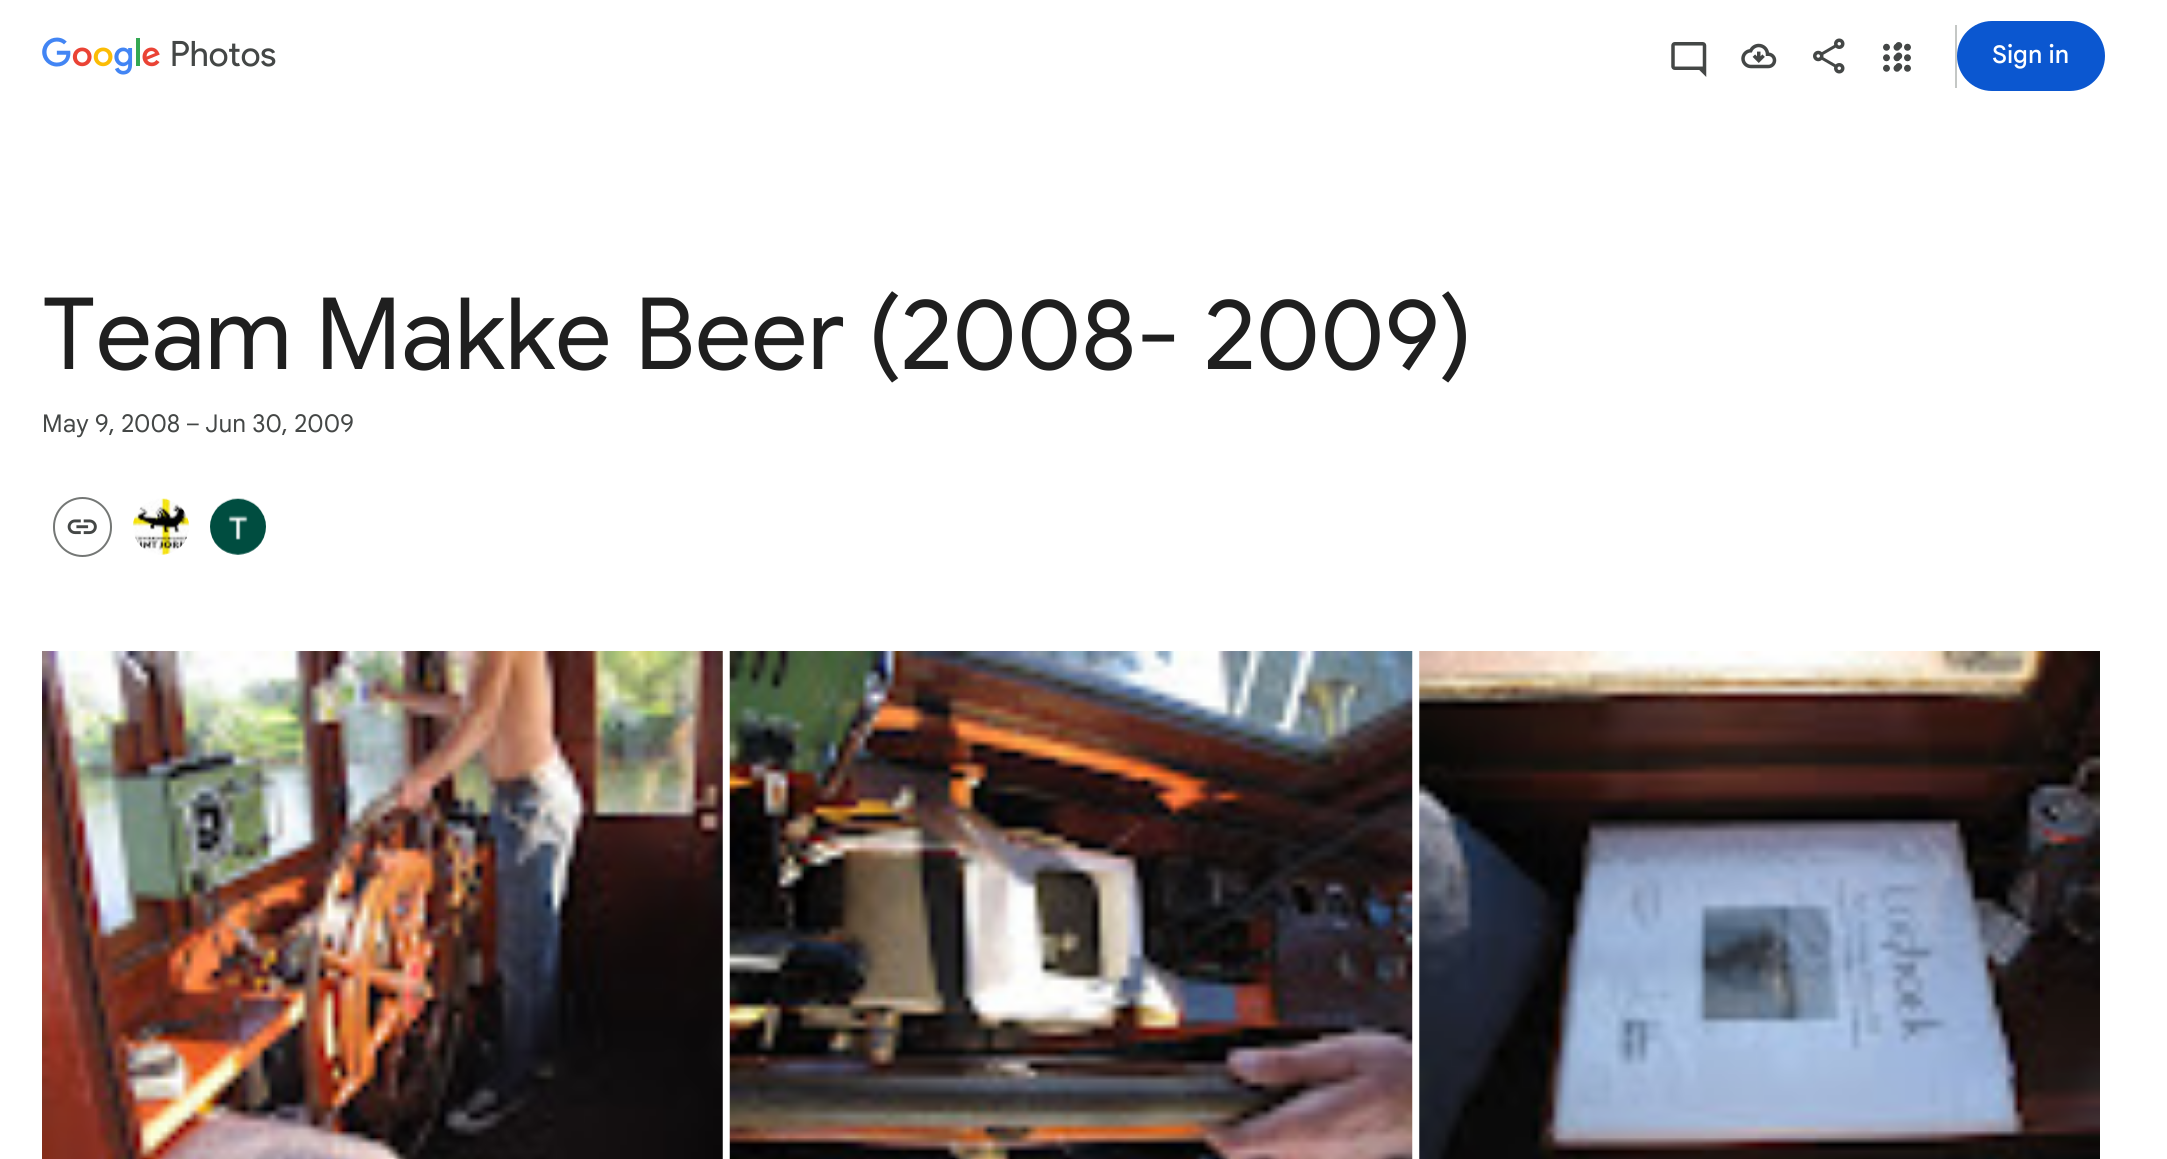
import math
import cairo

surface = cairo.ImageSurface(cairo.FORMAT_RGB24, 2167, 1159)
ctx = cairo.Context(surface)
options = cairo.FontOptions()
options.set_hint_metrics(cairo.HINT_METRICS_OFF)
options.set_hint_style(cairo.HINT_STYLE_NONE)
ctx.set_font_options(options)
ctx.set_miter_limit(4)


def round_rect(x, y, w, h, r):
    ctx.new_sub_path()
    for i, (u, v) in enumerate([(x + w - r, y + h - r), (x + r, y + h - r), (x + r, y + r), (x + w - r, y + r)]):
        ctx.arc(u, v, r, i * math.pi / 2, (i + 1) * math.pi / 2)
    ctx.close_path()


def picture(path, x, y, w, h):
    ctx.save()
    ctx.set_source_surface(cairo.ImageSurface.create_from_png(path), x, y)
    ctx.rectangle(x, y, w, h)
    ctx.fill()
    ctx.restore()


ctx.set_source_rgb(1, 1, 1)
ctx.paint()
picture("img1.png", 42, 37, 118, 38)
ctx.select_font_face("Product Sans")
ctx.set_font_size(35)
ctx.set_source_rgb(0.267, 0.278, 0.275)
ctx.move_to(170, 66)
ctx.show_text("Photos")
picture("img2.png", 1671, 42, 36, 35)
picture("img3.png", 1741, 43, 36, 26)
picture("img4.png", 1813, 38, 32, 36)
picture("img5.png", 1895, 42, 8, 28)
ctx.set_source_rgb(0.769, 0.78, 0.773)
ctx.rectangle(1955, 25, 2, 63)
ctx.fill()
ctx.select_font_face("Google Sans")
ctx.set_font_size(99.75)
ctx.set_source_rgb(0.122, 0.122, 0.122)
ctx.move_to(42, 369)
ctx.show_text("Team Makke Beer (2008- 2009)")
ctx.select_font_face("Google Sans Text")
ctx.set_font_size(24.5)
ctx.set_source_rgb(0.267, 0.278, 0.275)
ctx.move_to(42, 432)
ctx.show_text("May 9, 2008 – Jun 30, 2009")
round_rect(54, 498, 57, 58, 28.5)
ctx.set_source_rgb(0.455, 0.467, 0.459)
ctx.stroke()
picture("img6.png", 67, 519, 30, 16)
picture("img7.png", 133, 498, 56, 57)
picture("img8.png", 210, 498, 56, 57)
picture("img9.png", 42, 651, 681, 508)
picture("img10.png", 729, 651, 684, 508)
picture("img11.png", 1419, 651, 681, 508)
picture("img12.png", 1883, 43, 28, 29)
ctx.set_source_rgb(0.043, 0.341, 0.816)
round_rect(1957, 21, 148, 70, 35)
ctx.fill()
ctx.select_font_face("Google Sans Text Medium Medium")
ctx.set_source_rgb(1, 1, 1)
ctx.move_to(1992, 63)
ctx.show_text("Sign in")
surface.write_to_png("page.png")
